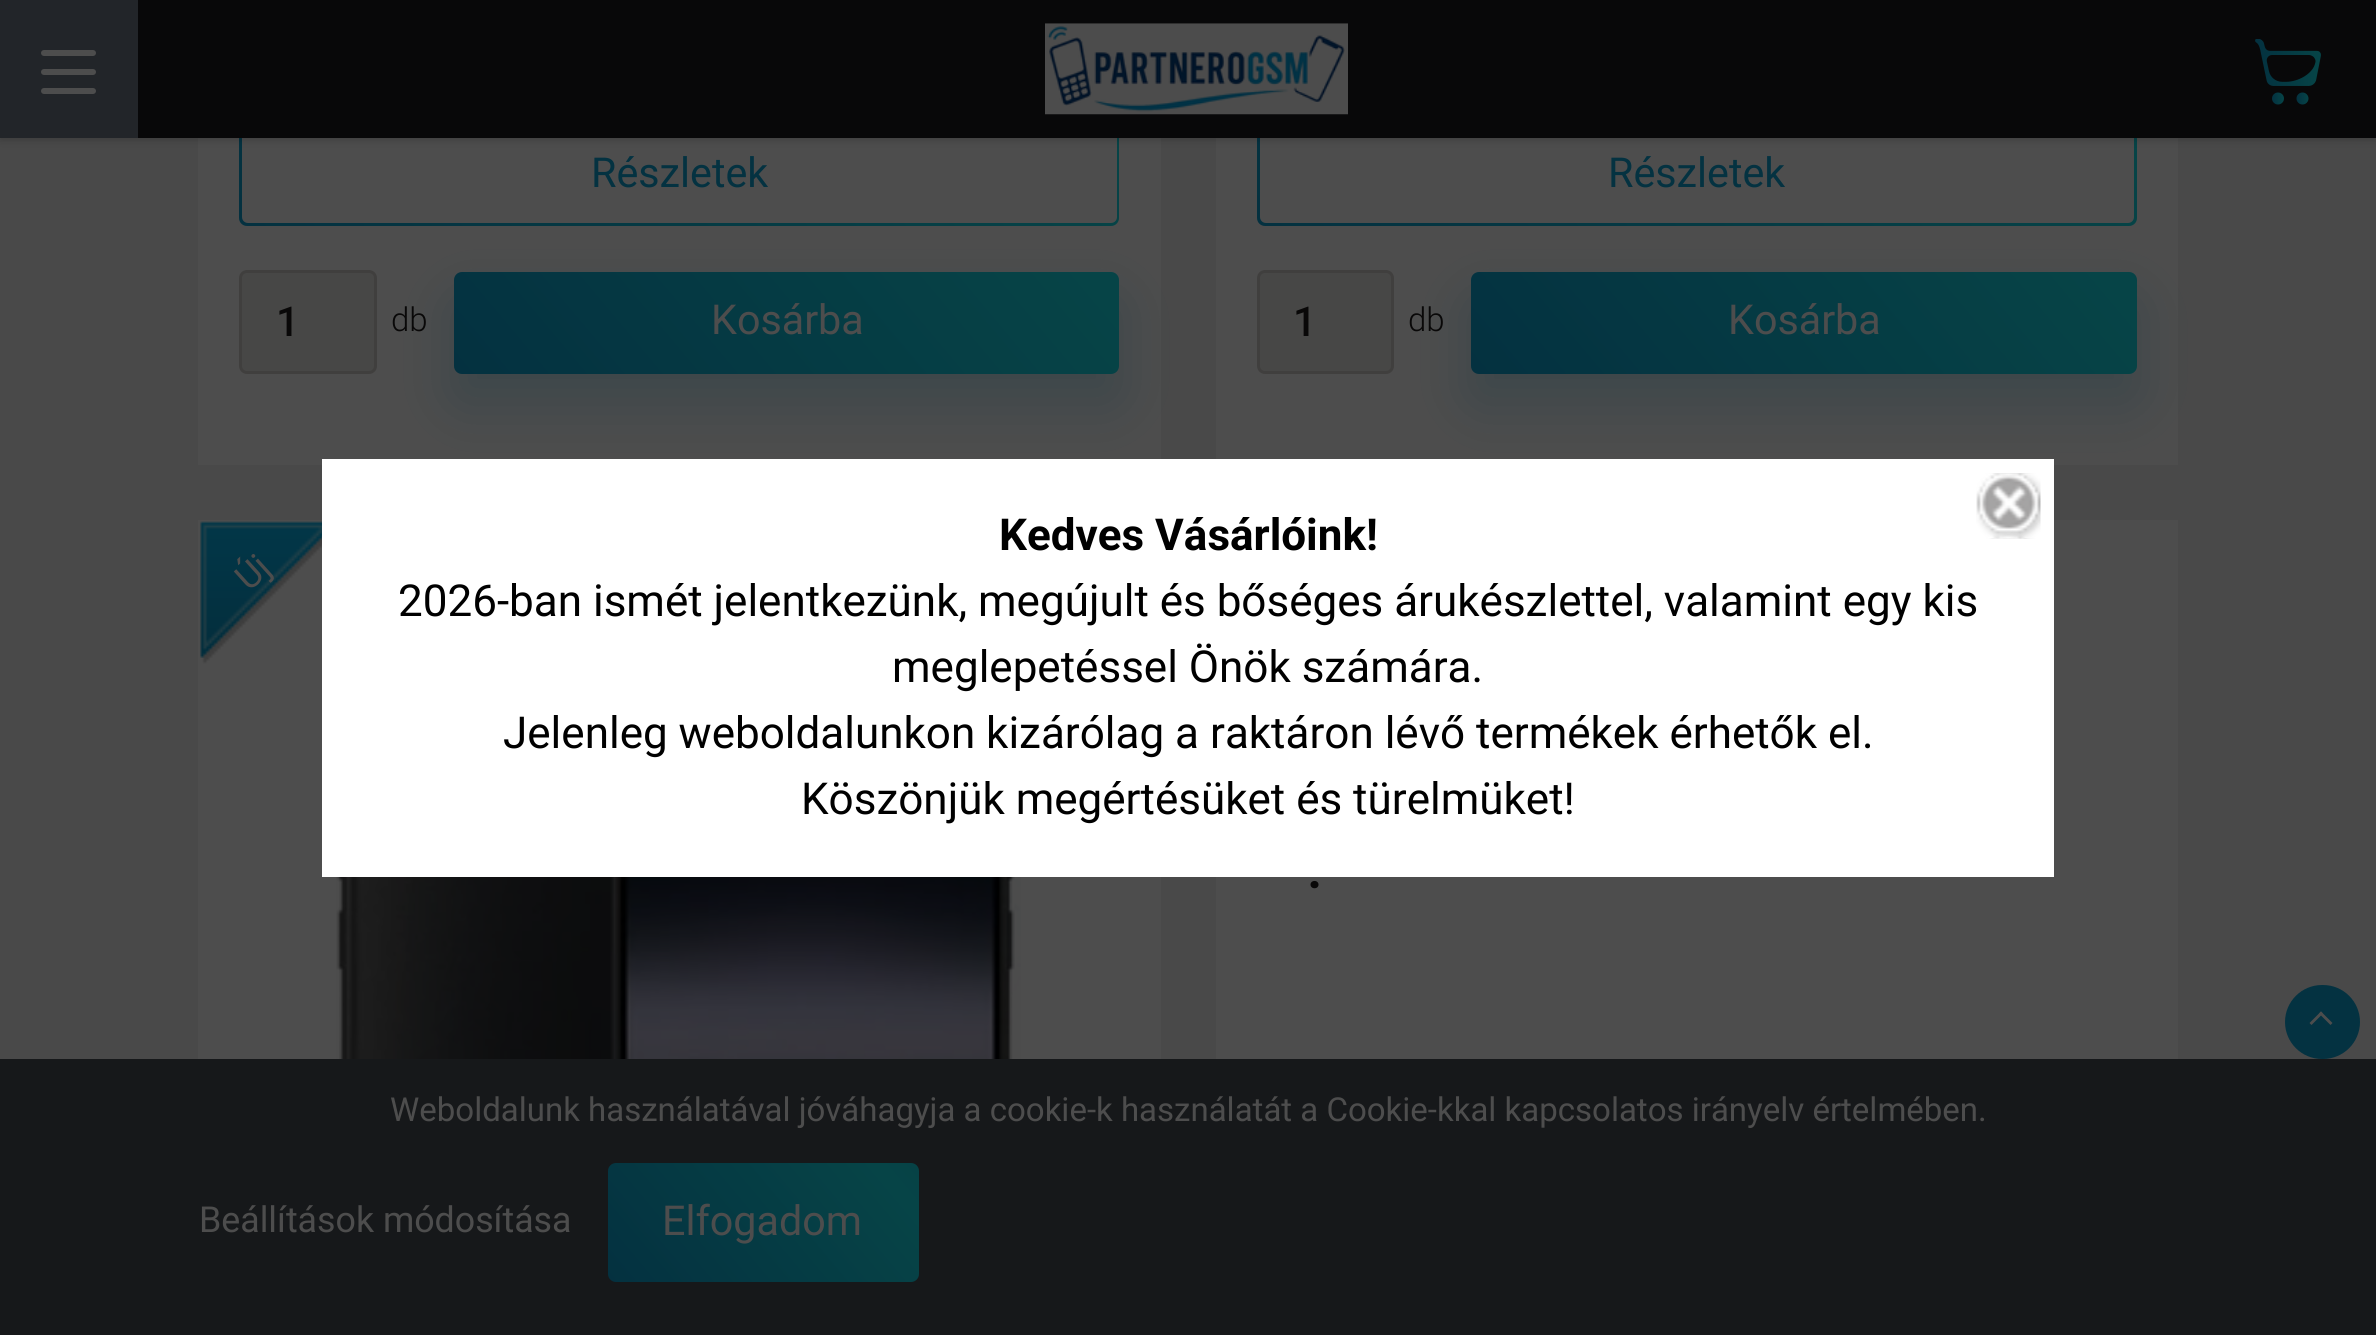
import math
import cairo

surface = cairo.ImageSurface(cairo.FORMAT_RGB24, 2376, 1335)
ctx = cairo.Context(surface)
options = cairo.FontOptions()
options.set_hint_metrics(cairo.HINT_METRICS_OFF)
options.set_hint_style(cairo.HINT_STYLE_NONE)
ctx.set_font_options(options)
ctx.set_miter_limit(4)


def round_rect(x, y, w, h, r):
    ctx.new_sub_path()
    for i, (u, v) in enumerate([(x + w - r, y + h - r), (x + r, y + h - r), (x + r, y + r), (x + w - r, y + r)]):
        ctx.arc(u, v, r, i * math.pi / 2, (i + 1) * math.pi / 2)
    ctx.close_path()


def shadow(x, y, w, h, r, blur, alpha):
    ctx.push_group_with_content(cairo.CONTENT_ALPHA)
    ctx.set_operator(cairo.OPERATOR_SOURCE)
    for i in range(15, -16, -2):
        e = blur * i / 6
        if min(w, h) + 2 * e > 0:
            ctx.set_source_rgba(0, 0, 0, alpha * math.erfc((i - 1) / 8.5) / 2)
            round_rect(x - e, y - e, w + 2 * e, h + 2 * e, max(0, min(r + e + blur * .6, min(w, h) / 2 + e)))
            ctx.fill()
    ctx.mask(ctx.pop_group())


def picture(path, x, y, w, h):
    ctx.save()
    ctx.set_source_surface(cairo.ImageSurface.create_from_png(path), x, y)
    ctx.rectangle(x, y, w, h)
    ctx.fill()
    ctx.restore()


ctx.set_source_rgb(0.286, 0.286, 0.286)
ctx.paint()
ctx.set_source_rgb(0.302, 0.302, 0.302)
ctx.rectangle(198, 138, 963, 327)
ctx.fill()
ctx.set_source_rgb(0.278, 0.278, 0.275)
round_rect(240.5, 271.5, 135, 101, 6.5)
ctx.fill_preserve()
ctx.set_source_rgb(0.251, 0.247, 0.243)
ctx.set_line_width(3)
ctx.stroke()
ctx.set_source_rgb(0.016, 0.192, 0.251)
shadow(454, 300, 665, 102, 8, 27.5, 0.25)
gradient = cairo.LinearGradient(578, 629, 1661, -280)
gradient.add_color_stop_rgba(0, 0.016, 0.192, 0.251, 1)
gradient.add_color_stop_rgba(0.51, 0.024, 0.267, 0.278, 1)
gradient.add_color_stop_rgba(1, 0.016, 0.192, 0.251, 1)
ctx.set_source(gradient)
round_rect(239, 124, 880, 102, 8)
ctx.fill()
ctx.set_source_rgb(0.302, 0.302, 0.302)
round_rect(242, 127, 875, 96, 6)
ctx.fill()
ctx.rectangle(1216, 138, 962, 327)
ctx.fill()
ctx.set_source_rgb(0.278, 0.278, 0.275)
round_rect(1258.5, 271.5, 134, 101, 6.5)
ctx.fill_preserve()
ctx.set_source_rgb(0.251, 0.247, 0.243)
ctx.stroke()
ctx.set_source_rgb(0.016, 0.192, 0.251)
shadow(1471, 300, 666, 102, 8, 27.5, 0.25)
gradient = cairo.LinearGradient(1595, 629, 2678, -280)
gradient.add_color_stop_rgba(0, 0.016, 0.192, 0.251, 1)
gradient.add_color_stop_rgba(0.51, 0.024, 0.267, 0.278, 1)
gradient.add_color_stop_rgba(1, 0.016, 0.192, 0.251, 1)
ctx.set_source(gradient)
round_rect(1257, 124, 880, 102, 8)
ctx.fill()
ctx.set_source_rgb(0.302, 0.302, 0.302)
round_rect(1260, 127, 874, 96, 6)
ctx.fill()
ctx.set_source_rgb(0, 0, 0)
shadow(0, 3, 2376, 137, 0, 4, 0.2)
ctx.set_source_rgb(0.035, 0.035, 0.039)
ctx.rectangle(138, 0, 2238, 138)
ctx.fill()
ctx.set_source_rgb(0.133, 0.145, 0.161)
ctx.rectangle(0, 0, 138, 138)
ctx.fill()
ctx.set_source_rgb(0.302, 0.302, 0.302)
round_rect(41, 50, 55, 6, 3)
ctx.fill()
round_rect(41, 69, 55, 6, 3)
ctx.fill()
round_rect(41, 88, 55, 6, 3)
ctx.fill()
picture("img1.png", 1045, 23, 303, 92)
picture("img2.png", 2255, 39, 66, 66)
ctx.select_font_face("Roboto")
ctx.set_font_size(41.25)
ctx.set_source_rgb(0.016, 0.196, 0.255)
ctx.move_to(591, 187)
ctx.show_text("Részletek")
ctx.select_font_face("Roboto Medium")
ctx.set_source_rgb(0.039, 0.035, 0.035)
ctx.move_to(276, 336)
ctx.show_text("1")
ctx.select_font_face("Roboto Light")
ctx.set_font_size(33)
ctx.move_to(391, 331)
ctx.show_text("db")
gradient = cairo.LinearGradient(704, 672, 1535, -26)
gradient.add_color_stop_rgba(0, 0.016, 0.192, 0.251, 1)
gradient.add_color_stop_rgba(0.51, 0.024, 0.267, 0.278, 1)
gradient.add_color_stop_rgba(1, 0.016, 0.192, 0.251, 1)
ctx.set_source(gradient)
round_rect(454, 272, 665, 102, 8)
ctx.fill()
ctx.select_font_face("Roboto")
ctx.set_font_size(41.25)
ctx.set_source_rgb(0.302, 0.302, 0.302)
ctx.move_to(711, 334)
ctx.show_text("Kosárba")
ctx.set_source_rgb(0.016, 0.196, 0.255)
ctx.move_to(1608, 187)
ctx.show_text("Részletek")
ctx.select_font_face("Roboto Medium")
ctx.set_source_rgb(0.039, 0.035, 0.035)
ctx.move_to(1293, 336)
ctx.show_text("1")
ctx.select_font_face("Roboto Light")
ctx.set_font_size(33)
ctx.move_to(1408, 331)
ctx.show_text("db")
gradient = cairo.LinearGradient(1721, 672, 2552, -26)
gradient.add_color_stop_rgba(0, 0.016, 0.192, 0.251, 1)
gradient.add_color_stop_rgba(0.51, 0.024, 0.267, 0.278, 1)
gradient.add_color_stop_rgba(1, 0.016, 0.192, 0.251, 1)
ctx.set_source(gradient)
round_rect(1471, 272, 666, 102, 8)
ctx.fill()
ctx.select_font_face("Roboto")
ctx.set_font_size(41.25)
ctx.set_source_rgb(0.302, 0.302, 0.302)
ctx.move_to(1728, 334)
ctx.show_text("Kosárba")
ctx.rectangle(198, 520, 963, 539)
ctx.fill()
picture("img3.png", 200, 521, 122, 143)
ctx.set_font_size(35.75)
ctx.save()
ctx.translate(249, 592)
ctx.rotate(-42 * math.pi / 180)
ctx.move_to(0, 0)
ctx.show_text("Új")
ctx.restore()
picture("img4.png", 336, 877, 685, 182)
ctx.rectangle(1216, 520, 962, 539)
ctx.fill()
ctx.select_font_face("Roboto Black")
ctx.set_font_size(44)
ctx.set_source_rgb(0.039, 0.035, 0.035)
ctx.move_to(1308, 888)
ctx.show_text(".")
ctx.set_source_rgb(0.016, 0.196, 0.255)
round_rect(2285, 985, 75, 74, 37)
ctx.fill()
ctx.set_source_rgb(0.302, 0.302, 0.302)
ctx.new_path()
ctx.move_to(2311.5, 1025)
ctx.line_to(2309.5, 1023)
ctx.line_to(2321, 1011.5)
ctx.line_to(2323, 1013.5)
ctx.close_path()
ctx.fill()
ctx.new_path()
ctx.move_to(2330.5, 1025)
ctx.line_to(2319, 1013.5)
ctx.line_to(2321, 1011.5)
ctx.line_to(2332.5, 1023)
ctx.close_path()
ctx.fill()
ctx.set_source_rgb(1, 1, 1)
ctx.rectangle(322, 459, 1732, 418)
ctx.fill()
picture("img5.png", 1976, 473, 65, 66)
ctx.select_font_face("Roboto", cairo.FONT_SLANT_NORMAL, cairo.FONT_WEIGHT_BOLD)
ctx.set_source_rgb(0, 0, 0)
ctx.move_to(999, 550)
ctx.show_text("Kedves Vásárlóink!")
ctx.select_font_face("Roboto")
ctx.move_to(398, 616)
ctx.show_text("2026-ban ismét jelentkezünk, megújult és bőséges árukészlettel, valamint egy kis")
ctx.move_to(892, 682)
ctx.show_text("meglepetéssel Önök számára.")
ctx.move_to(503, 748)
ctx.show_text("Jelenleg weboldalunkon kizárólag a raktáron lévő termékek érhetők el.")
ctx.move_to(801, 814)
ctx.show_text("Köszönjük megértésüket és türelmüket!")
ctx.set_source_rgb(0.086, 0.094, 0.102)
ctx.rectangle(0, 1059, 2376, 276)
ctx.fill()
ctx.set_font_size(33)
ctx.set_source_rgb(0.302, 0.302, 0.302)
ctx.move_to(390, 1121)
ctx.show_text("Weboldalunk használatával jóváhagyja a cookie-k használatát a Cookie-kkal kapcsolatos irányelv értelmében.")
ctx.set_font_size(35.75)
ctx.move_to(199, 1232)
ctx.show_text("Beállítások módosítása")
gradient = cairo.LinearGradient(707, 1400, 1130, 1045)
gradient.add_color_stop_rgba(0, 0.016, 0.192, 0.251, 1)
gradient.add_color_stop_rgba(0.51, 0.024, 0.267, 0.278, 1)
gradient.add_color_stop_rgba(1, 0.016, 0.192, 0.251, 1)
ctx.set_source(gradient)
round_rect(608, 1163, 311, 119, 8)
ctx.fill()
ctx.set_font_size(41.25)
ctx.set_source_rgb(0.302, 0.302, 0.302)
ctx.move_to(662, 1235)
ctx.show_text("Elfogadom")
surface.write_to_png("page.png")
